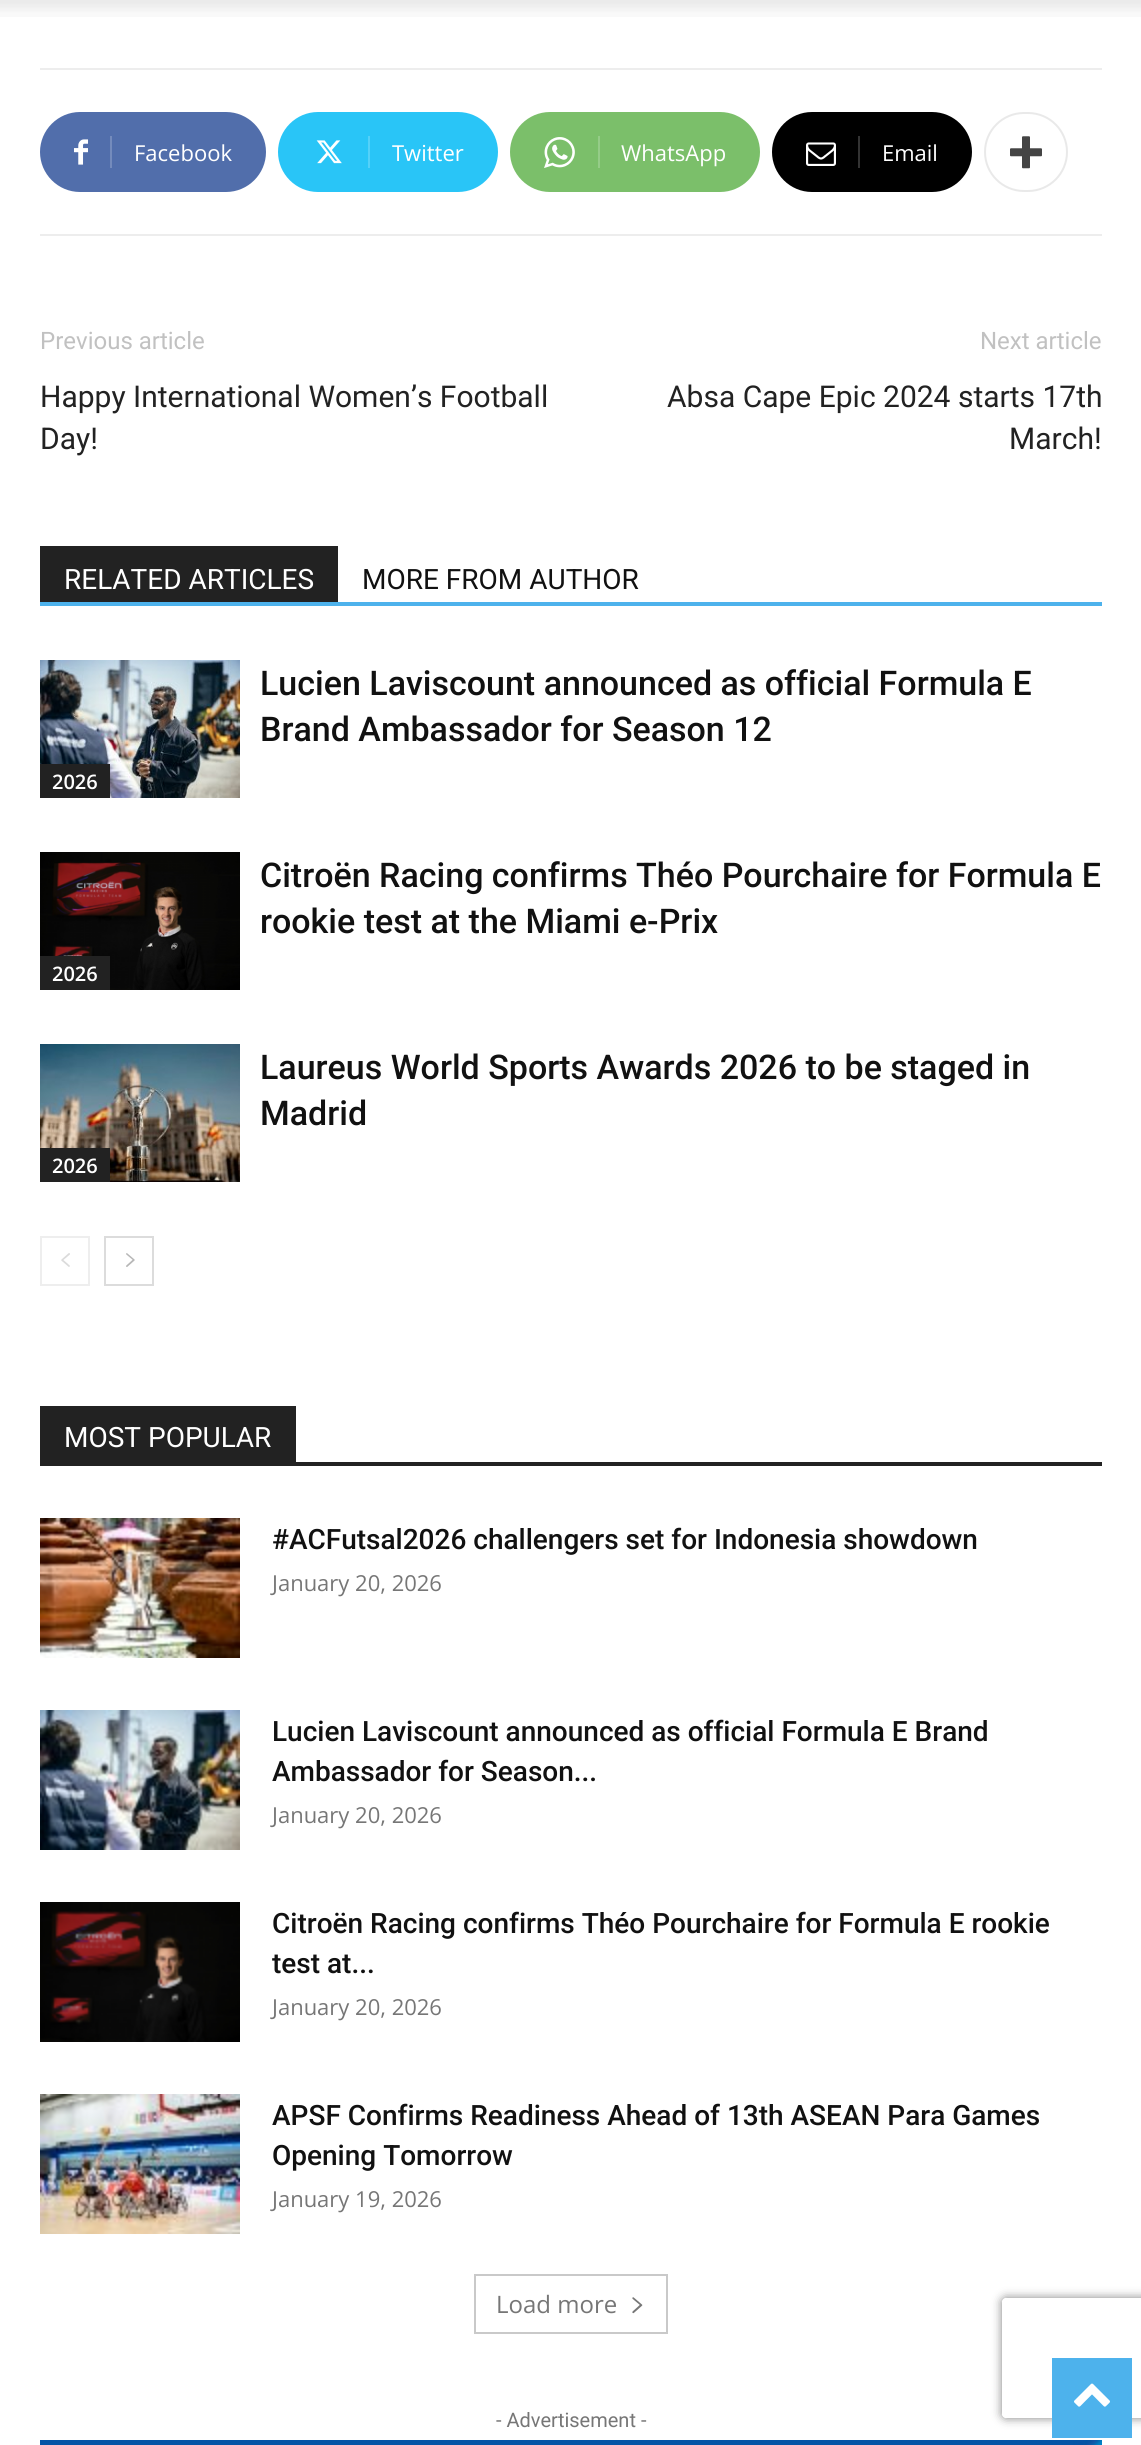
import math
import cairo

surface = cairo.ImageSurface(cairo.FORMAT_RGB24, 1141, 2445)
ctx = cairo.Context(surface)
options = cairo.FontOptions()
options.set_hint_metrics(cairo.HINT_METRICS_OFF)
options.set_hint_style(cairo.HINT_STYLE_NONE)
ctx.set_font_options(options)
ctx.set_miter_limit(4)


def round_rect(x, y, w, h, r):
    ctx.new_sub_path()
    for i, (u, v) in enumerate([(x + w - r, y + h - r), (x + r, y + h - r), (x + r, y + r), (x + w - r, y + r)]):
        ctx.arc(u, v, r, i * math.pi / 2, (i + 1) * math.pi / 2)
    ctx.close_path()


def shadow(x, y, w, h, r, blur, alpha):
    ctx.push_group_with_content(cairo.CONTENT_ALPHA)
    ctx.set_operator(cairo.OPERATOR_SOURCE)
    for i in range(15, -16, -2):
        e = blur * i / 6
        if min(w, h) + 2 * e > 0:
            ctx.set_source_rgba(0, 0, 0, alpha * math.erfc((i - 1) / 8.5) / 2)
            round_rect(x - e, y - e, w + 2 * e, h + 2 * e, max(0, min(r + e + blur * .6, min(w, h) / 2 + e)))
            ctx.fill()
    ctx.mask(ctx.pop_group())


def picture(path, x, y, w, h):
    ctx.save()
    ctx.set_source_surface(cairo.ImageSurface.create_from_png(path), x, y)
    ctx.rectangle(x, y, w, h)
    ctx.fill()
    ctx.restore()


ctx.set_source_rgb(1, 1, 1)
ctx.paint()
picture("img1.png", 0, 0, 1141, 17)
ctx.set_source_rgb(0.929, 0.929, 0.929)
ctx.rectangle(40, 68, 1062, 2)
ctx.fill()
ctx.rectangle(40, 234, 1062, 2)
ctx.fill()
ctx.set_source_rgb(0.318, 0.431, 0.671)
ctx.new_path()
ctx.move_to(110, 112)
ctx.line_to(226, 112)
ctx.curve_to(248, 112, 266, 130, 266, 152)
ctx.curve_to(266, 174, 248, 192, 226, 192)
ctx.line_to(110, 192)
ctx.close_path()
ctx.fill()
ctx.new_path()
ctx.move_to(80, 112)
ctx.line_to(122, 112)
ctx.line_to(122, 192)
ctx.line_to(80, 192)
ctx.curve_to(58, 192, 40, 174, 40, 152)
ctx.curve_to(40, 130, 58, 112, 80, 112)
ctx.close_path()
ctx.fill()
picture("img2.png", 74, 139, 14, 26)
ctx.set_source_rgb(0.455, 0.545, 0.737)
ctx.rectangle(110, 136, 2, 32)
ctx.fill()
ctx.select_font_face("Open Sans")
ctx.set_font_size(22)
ctx.set_source_rgb(1, 1, 1)
ctx.move_to(134, 161)
ctx.show_text("Facebook")
ctx.set_source_rgb(0.161, 0.773, 0.965)
ctx.new_path()
ctx.move_to(368, 112)
ctx.line_to(458, 112)
ctx.curve_to(480, 112, 498, 130, 498, 152)
ctx.curve_to(498, 174, 480, 192, 458, 192)
ctx.line_to(368, 192)
ctx.close_path()
ctx.fill()
ctx.new_path()
ctx.move_to(318, 112)
ctx.line_to(380, 112)
ctx.line_to(380, 192)
ctx.line_to(318, 192)
ctx.curve_to(296, 192, 278, 174, 278, 152)
ctx.curve_to(278, 130, 296, 112, 318, 112)
ctx.close_path()
ctx.fill()
picture("img3.png", 316, 140, 26, 24)
ctx.set_source_rgb(0.329, 0.82, 0.973)
ctx.rectangle(368, 136, 2, 32)
ctx.fill()
ctx.set_source_rgb(1, 1, 1)
ctx.move_to(392, 161)
ctx.show_text("Twitter")
ctx.set_source_rgb(0.482, 0.749, 0.416)
ctx.new_path()
ctx.move_to(598, 112)
ctx.line_to(720, 112)
ctx.curve_to(742, 112, 760, 130, 760, 152)
ctx.curve_to(760, 174, 742, 192, 720, 192)
ctx.line_to(598, 192)
ctx.close_path()
ctx.fill()
ctx.new_path()
ctx.move_to(550, 112)
ctx.line_to(610, 112)
ctx.line_to(610, 192)
ctx.line_to(550, 192)
ctx.curve_to(528, 192, 510, 174, 510, 152)
ctx.curve_to(510, 130, 528, 112, 550, 112)
ctx.close_path()
ctx.fill()
picture("img4.png", 544, 137, 31, 31)
ctx.set_source_rgb(0.584, 0.8, 0.533)
ctx.rectangle(598, 136, 2, 32)
ctx.fill()
ctx.set_source_rgb(1, 1, 1)
ctx.move_to(621, 161)
ctx.show_text("WhatsApp")
ctx.set_source_rgb(0, 0, 0)
ctx.new_path()
ctx.move_to(858, 112)
ctx.line_to(932, 112)
ctx.curve_to(954, 112, 972, 130, 972, 152)
ctx.curve_to(972, 174, 954, 192, 932, 192)
ctx.line_to(858, 192)
ctx.close_path()
ctx.fill()
ctx.new_path()
ctx.move_to(812, 112)
ctx.line_to(870, 112)
ctx.line_to(870, 192)
ctx.line_to(812, 192)
ctx.curve_to(790, 192, 772, 174, 772, 152)
ctx.curve_to(772, 130, 790, 112, 812, 112)
ctx.close_path()
ctx.fill()
picture("img5.png", 806, 142, 30, 24)
ctx.set_source_rgb(0.2, 0.2, 0.2)
ctx.rectangle(858, 136, 2, 32)
ctx.fill()
ctx.set_source_rgb(1, 1, 1)
ctx.move_to(882, 161)
ctx.show_text("Email")
round_rect(985, 113, 82, 78, 39)
ctx.set_source_rgb(0.914, 0.914, 0.914)
ctx.stroke()
picture("img6.png", 1010, 136, 32, 33)
ctx.select_font_face("Roboto")
ctx.set_font_size(24)
ctx.set_source_rgb(0.757, 0.757, 0.757)
ctx.move_to(40, 349)
ctx.show_text("Previous article")
ctx.set_font_size(30)
ctx.set_source_rgb(0.133, 0.133, 0.133)
ctx.move_to(40, 407)
ctx.show_text("Happy International Women’s Football")
ctx.move_to(40, 449)
ctx.show_text("Day!")
ctx.set_font_size(24)
ctx.set_source_rgb(0.757, 0.757, 0.757)
ctx.move_to(980, 349)
ctx.show_text("Next article")
ctx.set_font_size(30)
ctx.set_source_rgb(0.133, 0.133, 0.133)
ctx.move_to(667, 407)
ctx.show_text("Absa Cape Epic 2024 starts 17th")
ctx.move_to(1009, 449)
ctx.show_text("March!")
ctx.set_source_rgb(0.302, 0.698, 0.925)
ctx.rectangle(40, 602, 1062, 4)
ctx.fill()
ctx.set_source_rgb(0.133, 0.133, 0.133)
ctx.rectangle(40, 546, 298, 56)
ctx.fill()
ctx.set_font_size(28)
ctx.set_source_rgb(1, 1, 1)
ctx.move_to(64, 589)
ctx.show_text("RELATED ARTICLES")
ctx.set_source_rgb(0.067, 0.067, 0.067)
ctx.move_to(362, 589)
ctx.show_text("MORE FROM AUTHOR")
ctx.select_font_face("Roboto Medium")
ctx.set_font_size(34)
ctx.move_to(260, 695)
ctx.show_text("Lucien Laviscount announced as official Formula E")
ctx.move_to(260, 741)
ctx.show_text("Brand Ambassador for Season 12")
picture("img7.png", 40, 660, 200, 138)
ctx.set_source_rgb(0.133, 0.133, 0.133)
ctx.rectangle(40, 764, 70, 34)
ctx.fill()
ctx.select_font_face("Open Sans SemiBold")
ctx.set_font_size(20)
ctx.set_source_rgb(1, 1, 1)
ctx.move_to(52, 789)
ctx.show_text("2026")
ctx.select_font_face("Roboto Medium")
ctx.set_font_size(34)
ctx.set_source_rgb(0.067, 0.067, 0.067)
ctx.move_to(260, 887)
ctx.show_text("Citroën Racing confirms Théo Pourchaire for Formula E")
ctx.move_to(260, 933)
ctx.show_text("rookie test at the Miami e-Prix")
picture("img8.png", 40, 852, 200, 138)
ctx.set_source_rgb(0.133, 0.133, 0.133)
ctx.rectangle(40, 956, 70, 34)
ctx.fill()
ctx.select_font_face("Open Sans SemiBold")
ctx.set_font_size(20)
ctx.set_source_rgb(1, 1, 1)
ctx.move_to(52, 981)
ctx.show_text("2026")
ctx.select_font_face("Roboto Medium")
ctx.set_font_size(34)
ctx.set_source_rgb(0.067, 0.067, 0.067)
ctx.move_to(260, 1079)
ctx.show_text("Laureus World Sports Awards 2026 to be staged in")
ctx.move_to(260, 1125)
ctx.show_text("Madrid")
picture("img9.png", 40, 1044, 200, 138)
ctx.set_source_rgb(0.133, 0.133, 0.133)
ctx.rectangle(40, 1148, 70, 34)
ctx.fill()
ctx.select_font_face("Open Sans SemiBold")
ctx.set_font_size(20)
ctx.set_source_rgb(1, 1, 1)
ctx.move_to(52, 1173)
ctx.show_text("2026")
ctx.rectangle(41, 1237, 48, 48)
ctx.set_source_rgb(0.933, 0.933, 0.933)
ctx.stroke()
picture("img10.png", 61, 1253, 9, 14)
ctx.rectangle(105, 1237, 48, 48)
ctx.set_source_rgb(0.863, 0.863, 0.863)
ctx.stroke()
picture("img11.png", 126, 1253, 9, 14)
ctx.set_source_rgb(0.133, 0.133, 0.133)
ctx.rectangle(40, 1462, 1062, 4)
ctx.fill()
ctx.rectangle(40, 1406, 256, 56)
ctx.fill()
ctx.select_font_face("Roboto")
ctx.set_font_size(28)
ctx.set_source_rgb(1, 1, 1)
ctx.move_to(64, 1447)
ctx.show_text("MOST POPULAR")
picture("img12.png", 40, 1518, 200, 140)
ctx.select_font_face("Roboto Medium")
ctx.set_source_rgb(0.067, 0.067, 0.067)
ctx.move_to(272, 1549)
ctx.show_text("#ACFutsal2026 challengers set for Indonesia showdown")
ctx.select_font_face("Open Sans")
ctx.set_font_size(22)
ctx.set_source_rgb(0.463, 0.463, 0.463)
ctx.move_to(272, 1591)
ctx.show_text("January 20, 2026")
picture("img13.png", 40, 1710, 200, 140)
ctx.select_font_face("Roboto Medium")
ctx.set_font_size(28)
ctx.set_source_rgb(0.067, 0.067, 0.067)
ctx.move_to(272, 1741)
ctx.show_text("Lucien Laviscount announced as official Formula E Brand")
ctx.move_to(272, 1781)
ctx.show_text("Ambassador for Season...")
ctx.select_font_face("Open Sans")
ctx.set_font_size(22)
ctx.set_source_rgb(0.463, 0.463, 0.463)
ctx.move_to(272, 1823)
ctx.show_text("January 20, 2026")
picture("img14.png", 40, 1902, 200, 140)
ctx.select_font_face("Roboto Medium")
ctx.set_font_size(28)
ctx.set_source_rgb(0.067, 0.067, 0.067)
ctx.move_to(272, 1933)
ctx.show_text("Citroën Racing confirms Théo Pourchaire for Formula E rookie")
ctx.move_to(272, 1973)
ctx.show_text("test at...")
ctx.select_font_face("Open Sans")
ctx.set_font_size(22)
ctx.set_source_rgb(0.463, 0.463, 0.463)
ctx.move_to(272, 2015)
ctx.show_text("January 20, 2026")
picture("img15.png", 40, 2094, 200, 140)
ctx.select_font_face("Roboto Medium")
ctx.set_font_size(28)
ctx.set_source_rgb(0.067, 0.067, 0.067)
ctx.move_to(272, 2125)
ctx.show_text("APSF Confirms Readiness Ahead of 13th ASEAN Para Games")
ctx.move_to(272, 2165)
ctx.show_text("Opening Tomorrow")
ctx.select_font_face("Open Sans")
ctx.set_font_size(22)
ctx.set_source_rgb(0.463, 0.463, 0.463)
ctx.move_to(272, 2207)
ctx.show_text("January 19, 2026")
ctx.rectangle(475, 2275, 192, 58)
ctx.set_source_rgb(0.788, 0.788, 0.788)
ctx.stroke()
ctx.set_font_size(24)
ctx.set_source_rgb(0.463, 0.463, 0.463)
ctx.move_to(496, 2313)
ctx.show_text("Load more")
picture("img16.png", 632, 2297, 11, 17)
ctx.select_font_face("Roboto")
ctx.set_font_size(20)
ctx.move_to(496, 2427)
ctx.show_text("- Advertisement -")
picture("img17.png", 40, 2440, 1062, 5)
ctx.save()
ctx.set_fill_rule(cairo.FILL_RULE_EVEN_ODD)
ctx.new_path()
ctx.move_to(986, 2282)
ctx.line_to(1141, 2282)
ctx.line_to(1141, 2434)
ctx.line_to(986, 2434)
ctx.close_path()
ctx.move_to(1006, 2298)
ctx.line_to(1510, 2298)
ctx.curve_to(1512, 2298, 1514, 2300, 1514, 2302)
ctx.line_to(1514, 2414)
ctx.curve_to(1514, 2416, 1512, 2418, 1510, 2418)
ctx.line_to(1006, 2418)
ctx.curve_to(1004, 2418, 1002, 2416, 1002, 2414)
ctx.line_to(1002, 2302)
ctx.curve_to(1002, 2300, 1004, 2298, 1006, 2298)
ctx.close_path()
ctx.clip()
ctx.set_source_rgb(0.502, 0.502, 0.502)
shadow(1002, 2298, 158, 120, 4, 5, 1)
ctx.restore()
ctx.set_source_rgb(0.302, 0.698, 0.925)
ctx.rectangle(1052, 2358, 80, 80)
ctx.fill()
picture("img18.png", 1074, 2383, 36, 24)
surface.write_to_png("page.png")
